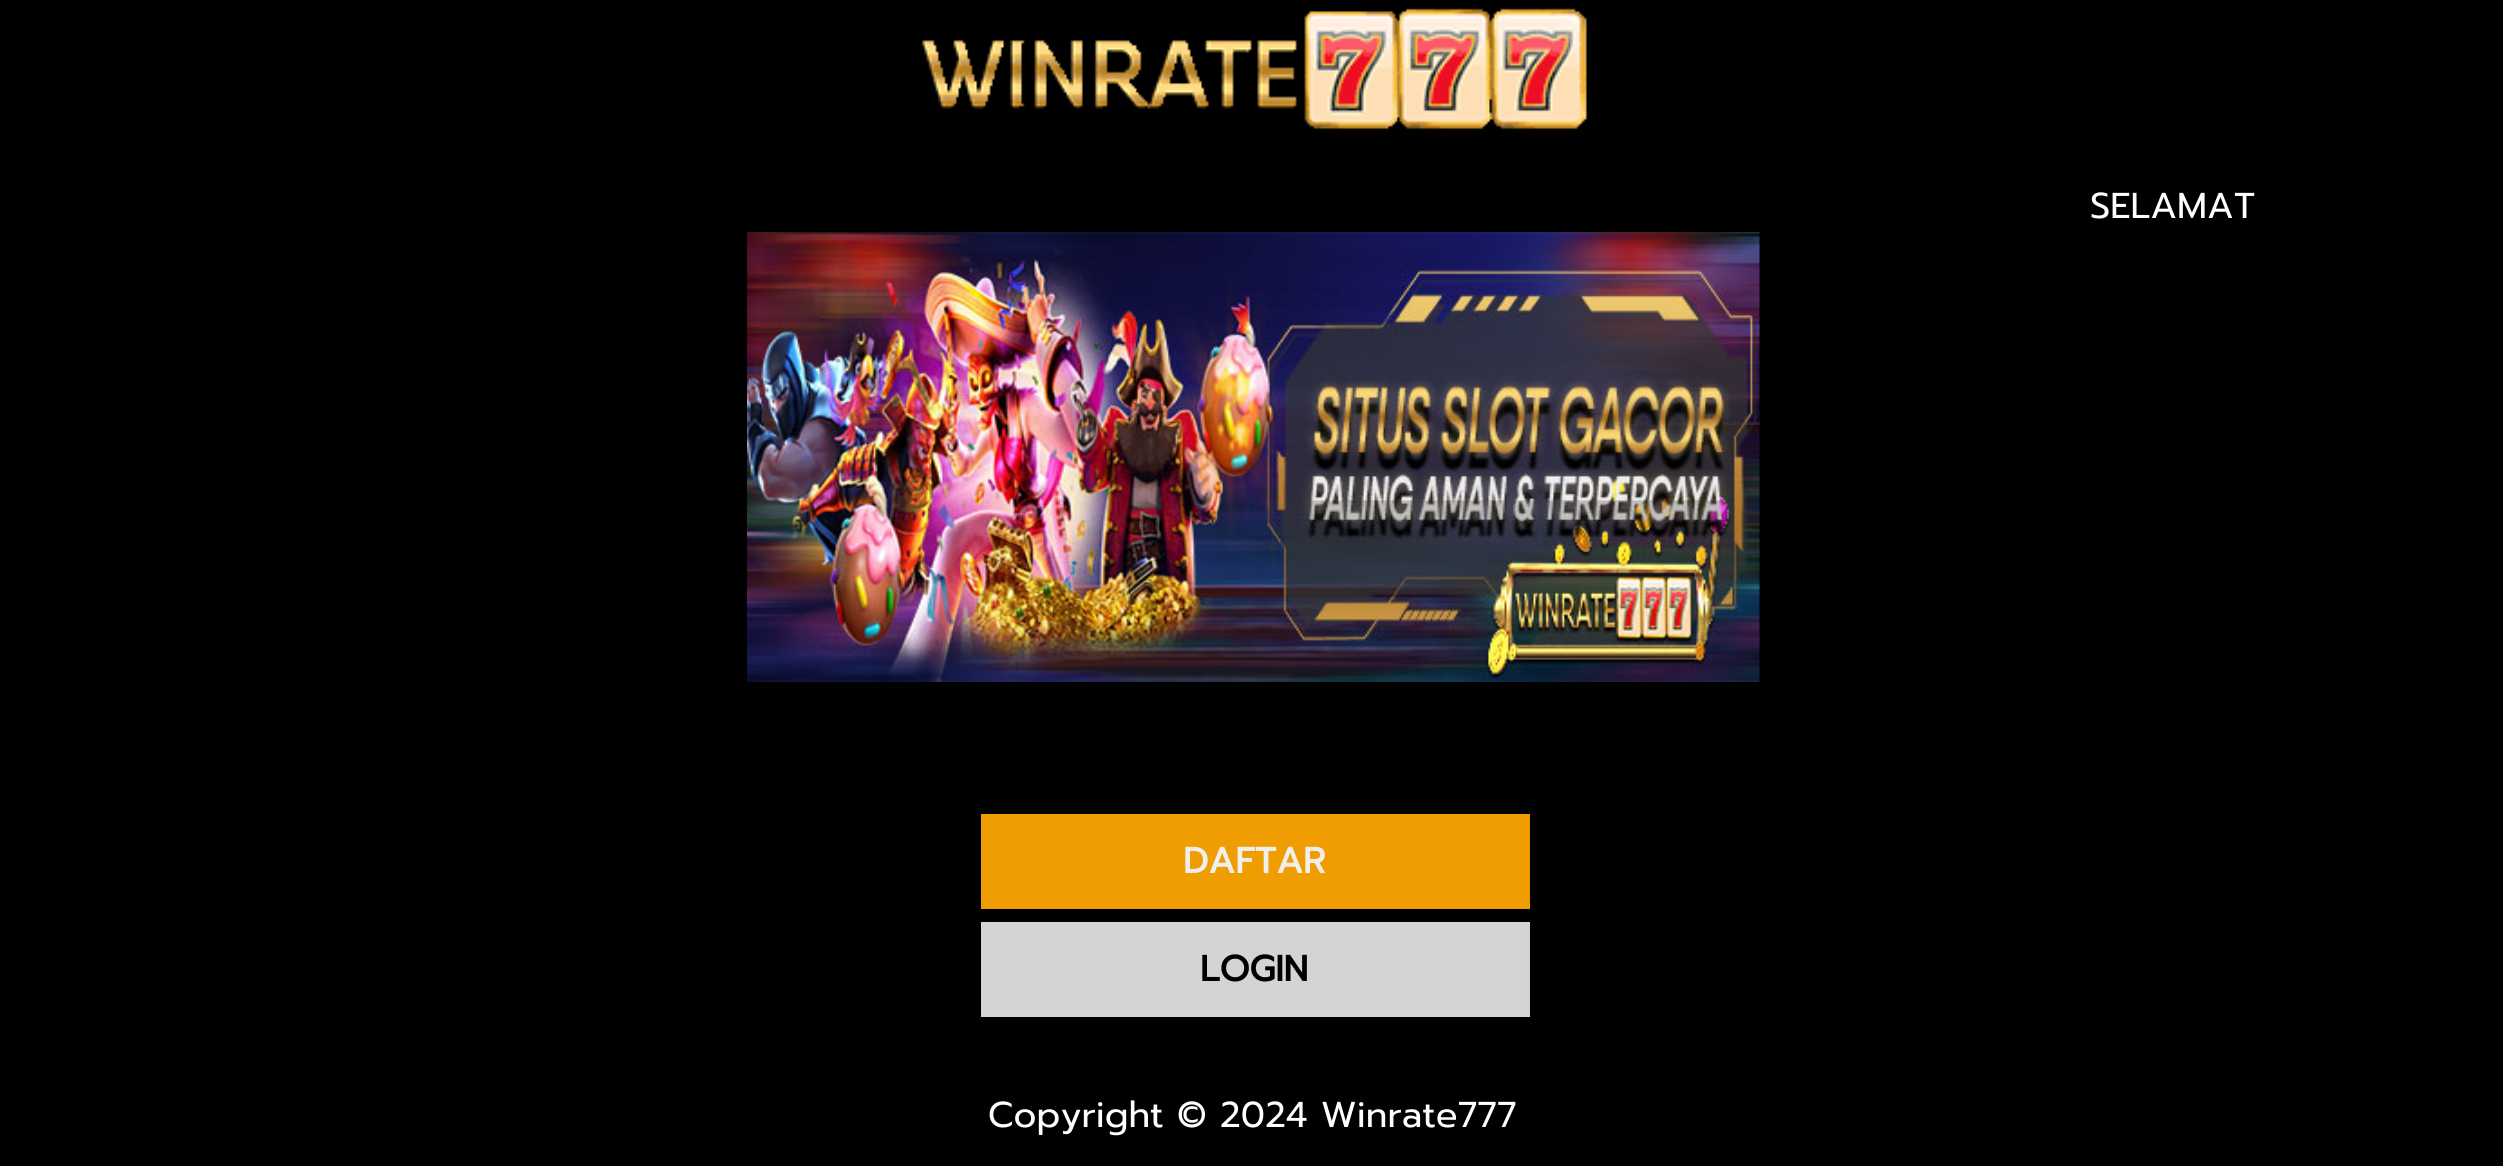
import math
import cairo

surface = cairo.ImageSurface(cairo.FORMAT_RGB24, 2503, 1166)
ctx = cairo.Context(surface)
options = cairo.FontOptions()
options.set_hint_metrics(cairo.HINT_METRICS_OFF)
options.set_hint_style(cairo.HINT_STYLE_NONE)
ctx.set_font_options(options)
ctx.set_miter_limit(4)


def picture(path, x, y, w, h):
    ctx.save()
    ctx.set_source_surface(cairo.ImageSurface.create_from_png(path), x, y)
    ctx.rectangle(x, y, w, h)
    ctx.fill()
    ctx.restore()


ctx.set_source_rgb(0, 0, 0)
ctx.paint()
picture("img1.png", 920, 8, 667, 122)
ctx.select_font_face("Prompt")
ctx.set_font_size(36)
ctx.set_source_rgb(1, 1, 1)
ctx.move_to(2090, 218)
ctx.show_text("SELAMAT")
picture("img2.png", 747, 232, 1013, 450)
ctx.set_source_rgb(0.937, 0.616, 0)
ctx.rectangle(981, 814, 549, 95)
ctx.fill()
ctx.select_font_face("Prompt", cairo.FONT_SLANT_NORMAL, cairo.FONT_WEIGHT_BOLD)
ctx.set_source_rgb(0.945, 0.933, 0.933)
ctx.move_to(1183, 873)
ctx.show_text("DAFTAR")
ctx.set_source_rgb(0.831, 0.831, 0.831)
ctx.rectangle(981, 922, 549, 95)
ctx.fill()
ctx.set_source_rgb(0, 0, 0)
ctx.move_to(1200, 981)
ctx.show_text("LOGIN")
ctx.select_font_face("Prompt")
ctx.set_source_rgb(1, 1, 1)
ctx.move_to(988, 1127)
ctx.show_text("Copyright © 2024 Winrate777")
surface.write_to_png("page.png")
